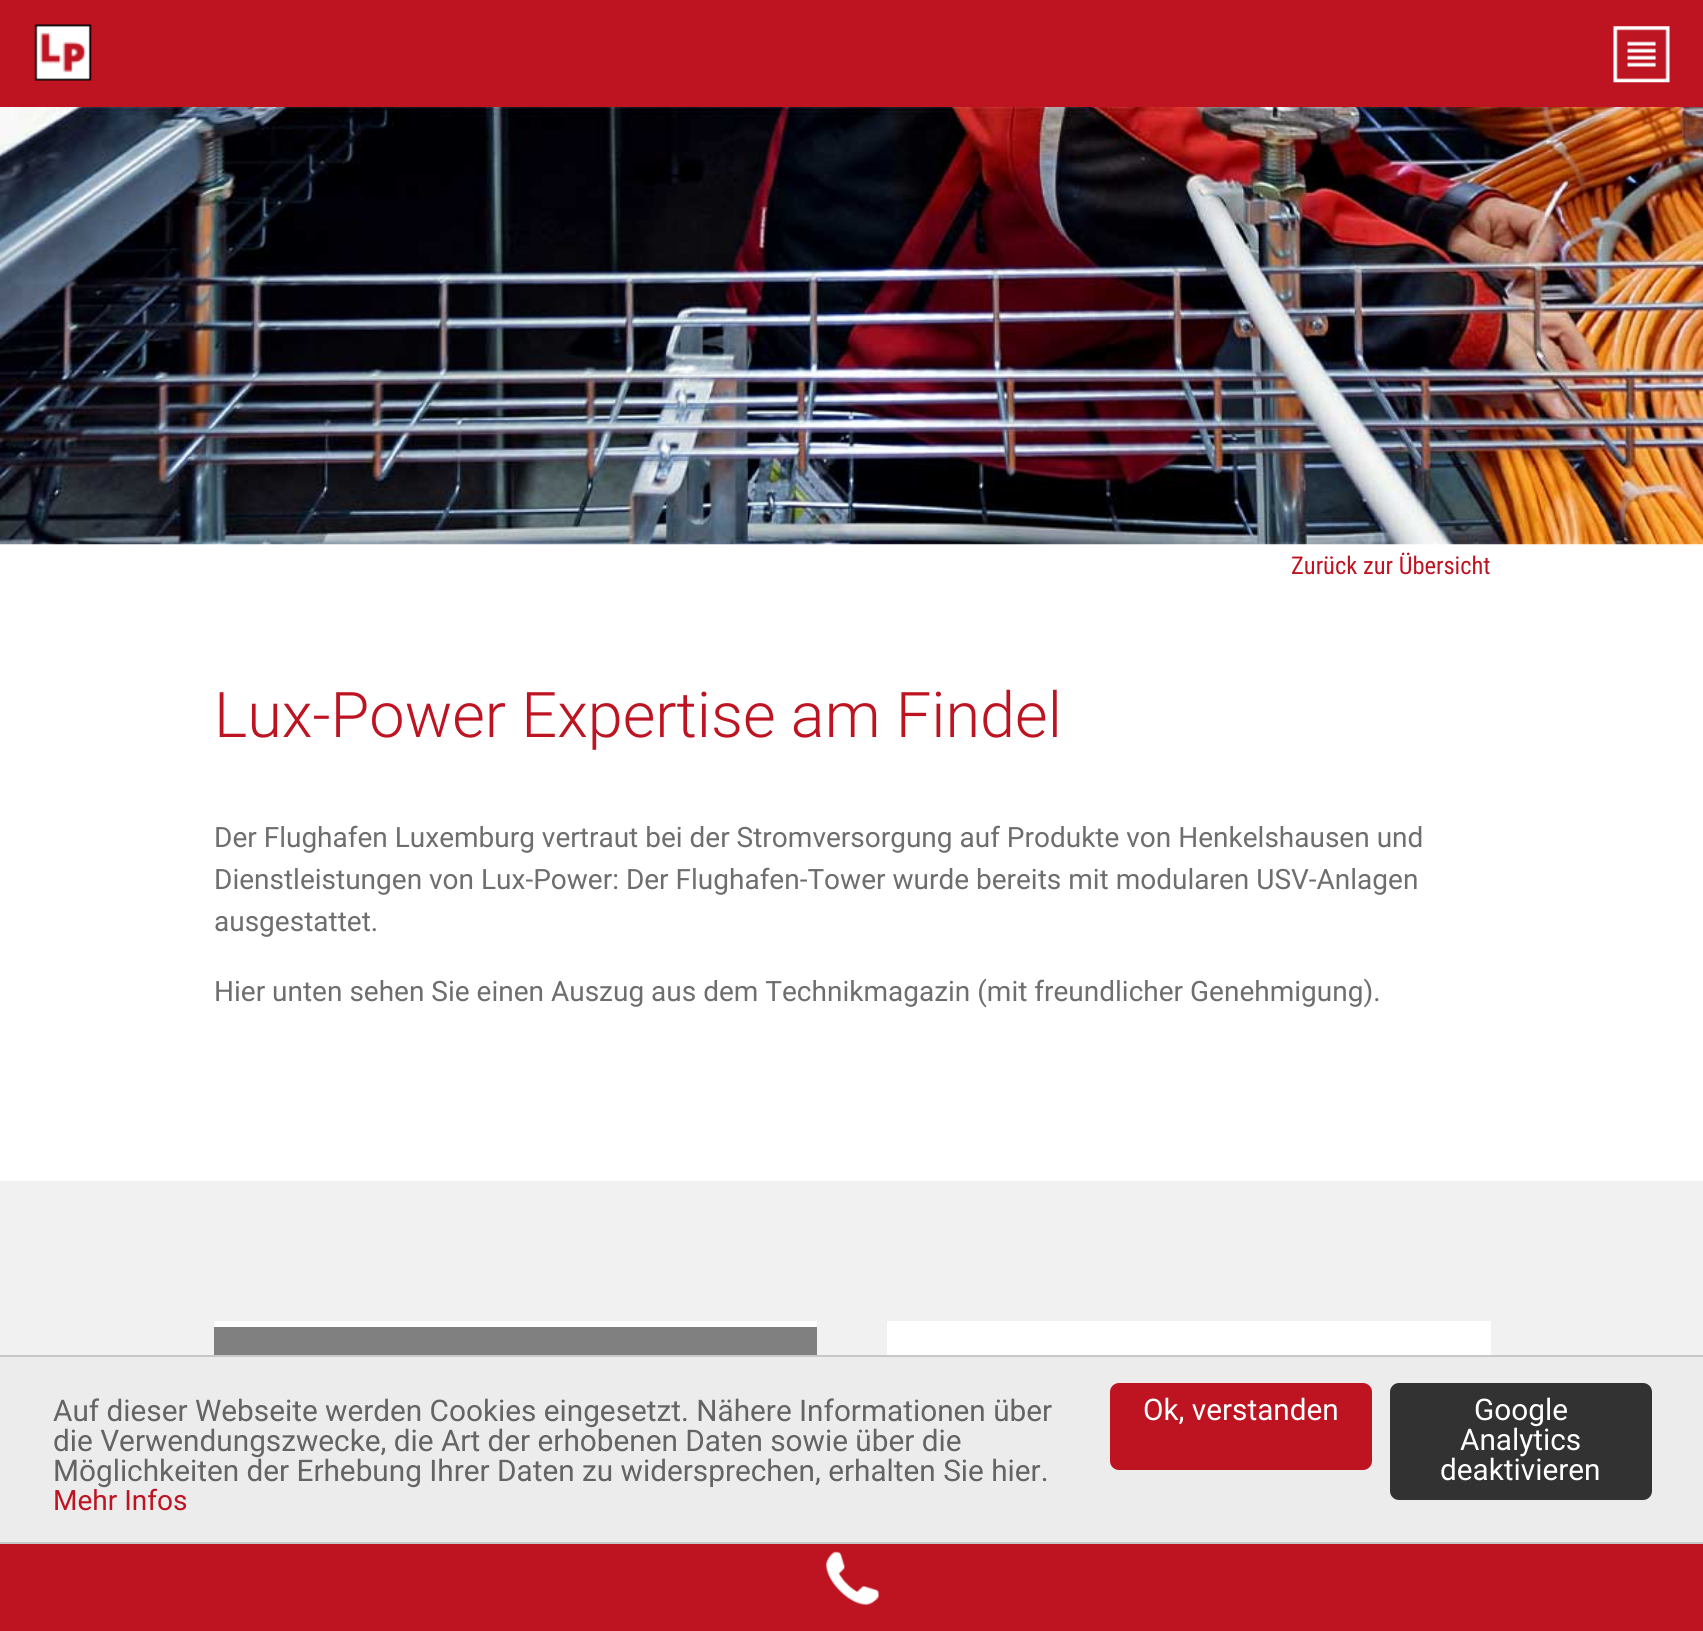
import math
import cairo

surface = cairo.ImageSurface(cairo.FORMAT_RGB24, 1703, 1631)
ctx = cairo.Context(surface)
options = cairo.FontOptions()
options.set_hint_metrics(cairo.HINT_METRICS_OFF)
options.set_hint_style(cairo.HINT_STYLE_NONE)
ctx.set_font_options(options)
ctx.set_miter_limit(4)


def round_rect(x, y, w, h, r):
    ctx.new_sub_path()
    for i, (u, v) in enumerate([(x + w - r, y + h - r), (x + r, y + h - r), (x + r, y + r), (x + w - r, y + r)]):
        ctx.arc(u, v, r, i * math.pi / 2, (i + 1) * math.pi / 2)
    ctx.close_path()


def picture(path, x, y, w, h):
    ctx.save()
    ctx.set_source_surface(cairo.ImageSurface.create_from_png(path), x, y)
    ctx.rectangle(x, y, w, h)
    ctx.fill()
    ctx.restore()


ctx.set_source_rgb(1, 1, 1)
ctx.paint()
ctx.set_source_rgb(0.745, 0.082, 0.133)
ctx.rectangle(0, 0, 1703, 107)
ctx.fill()
picture("img1.png", 34, 24, 58, 57)
picture("img2.png", 1613, 26, 57, 57)
picture("img3.png", 0, 107, 1703, 438)
ctx.select_font_face("Roboto Condensed")
ctx.set_font_size(24.5)
ctx.move_to(1291, 574)
ctx.show_text("Zurück zur Übersicht")
ctx.select_font_face("Roboto Light")
ctx.set_font_size(63)
ctx.move_to(214, 737)
ctx.show_text("Lux-Power Expertise am Findel")
ctx.select_font_face("Roboto")
ctx.set_font_size(28)
ctx.set_source_rgb(0.431, 0.431, 0.431)
ctx.move_to(214, 847)
ctx.show_text("Der Flughafen Luxemburg vertraut bei der Stromversorgung auf Produkte von Henkelshausen und")
ctx.move_to(214, 889)
ctx.show_text("Dienstleistungen von Lux-Power: Der Flughafen-Tower wurde bereits mit modularen USV-Anlagen")
ctx.move_to(214, 931)
ctx.show_text("ausgestattet.")
ctx.move_to(214, 1001)
ctx.show_text("Hier unten sehen Sie einen Auszug aus dem Technikmagazin (mit freundlicher Genehmigung).")
ctx.set_source_rgb(0.945, 0.945, 0.945)
ctx.rectangle(0, 1181, 1703, 174)
ctx.fill()
ctx.set_source_rgb(1, 1, 1)
ctx.rectangle(214, 1321, 603, 6)
ctx.fill()
ctx.set_source_rgb(0.502, 0.502, 0.502)
ctx.rectangle(214, 1327, 603, 28)
ctx.fill()
ctx.set_source_rgb(1, 1, 1)
ctx.rectangle(887, 1321, 604, 34)
ctx.fill()
ctx.set_source_rgb(0.745, 0.082, 0.133)
ctx.rectangle(0, 1544, 1703, 87)
ctx.fill()
picture("img4.png", 825, 1551, 55, 54)
ctx.set_source_rgb(0.922, 0.922, 0.922)
ctx.rectangle(0, 1357, 1703, 185)
ctx.fill()
ctx.set_source_rgb(0.784, 0.784, 0.784)
ctx.rectangle(0, 1355, 1703, 2)
ctx.fill()
ctx.rectangle(0, 1542, 1703, 2)
ctx.fill()
ctx.set_font_size(29.75)
ctx.set_source_rgb(0.392, 0.392, 0.392)
ctx.move_to(53, 1421)
ctx.show_text("Auf dieser Webseite werden Cookies eingesetzt. Nähere Informationen über")
ctx.move_to(53, 1451)
ctx.show_text("die Verwendungszwecke, die Art der erhobenen Daten sowie über die")
ctx.move_to(53, 1481)
ctx.show_text("Möglichkeiten der Erhebung Ihrer Daten zu widersprechen, erhalten Sie hier.")
ctx.set_font_size(28)
ctx.set_source_rgb(0.745, 0.082, 0.133)
ctx.move_to(53, 1510)
ctx.show_text("Mehr Infos")
round_rect(1110, 1383, 262, 87, 9)
ctx.fill()
ctx.set_font_size(29.75)
ctx.set_source_rgb(1, 1, 1)
ctx.move_to(1143, 1420)
ctx.show_text("Ok, verstanden")
ctx.set_source_rgb(0.196, 0.196, 0.196)
round_rect(1390, 1383, 262, 117, 9)
ctx.fill()
ctx.set_source_rgb(1, 1, 1)
ctx.move_to(1474, 1420)
ctx.show_text("Google")
ctx.move_to(1460, 1450)
ctx.show_text("Analytics")
ctx.move_to(1440, 1480)
ctx.show_text("deaktivieren")
surface.write_to_png("page.png")
